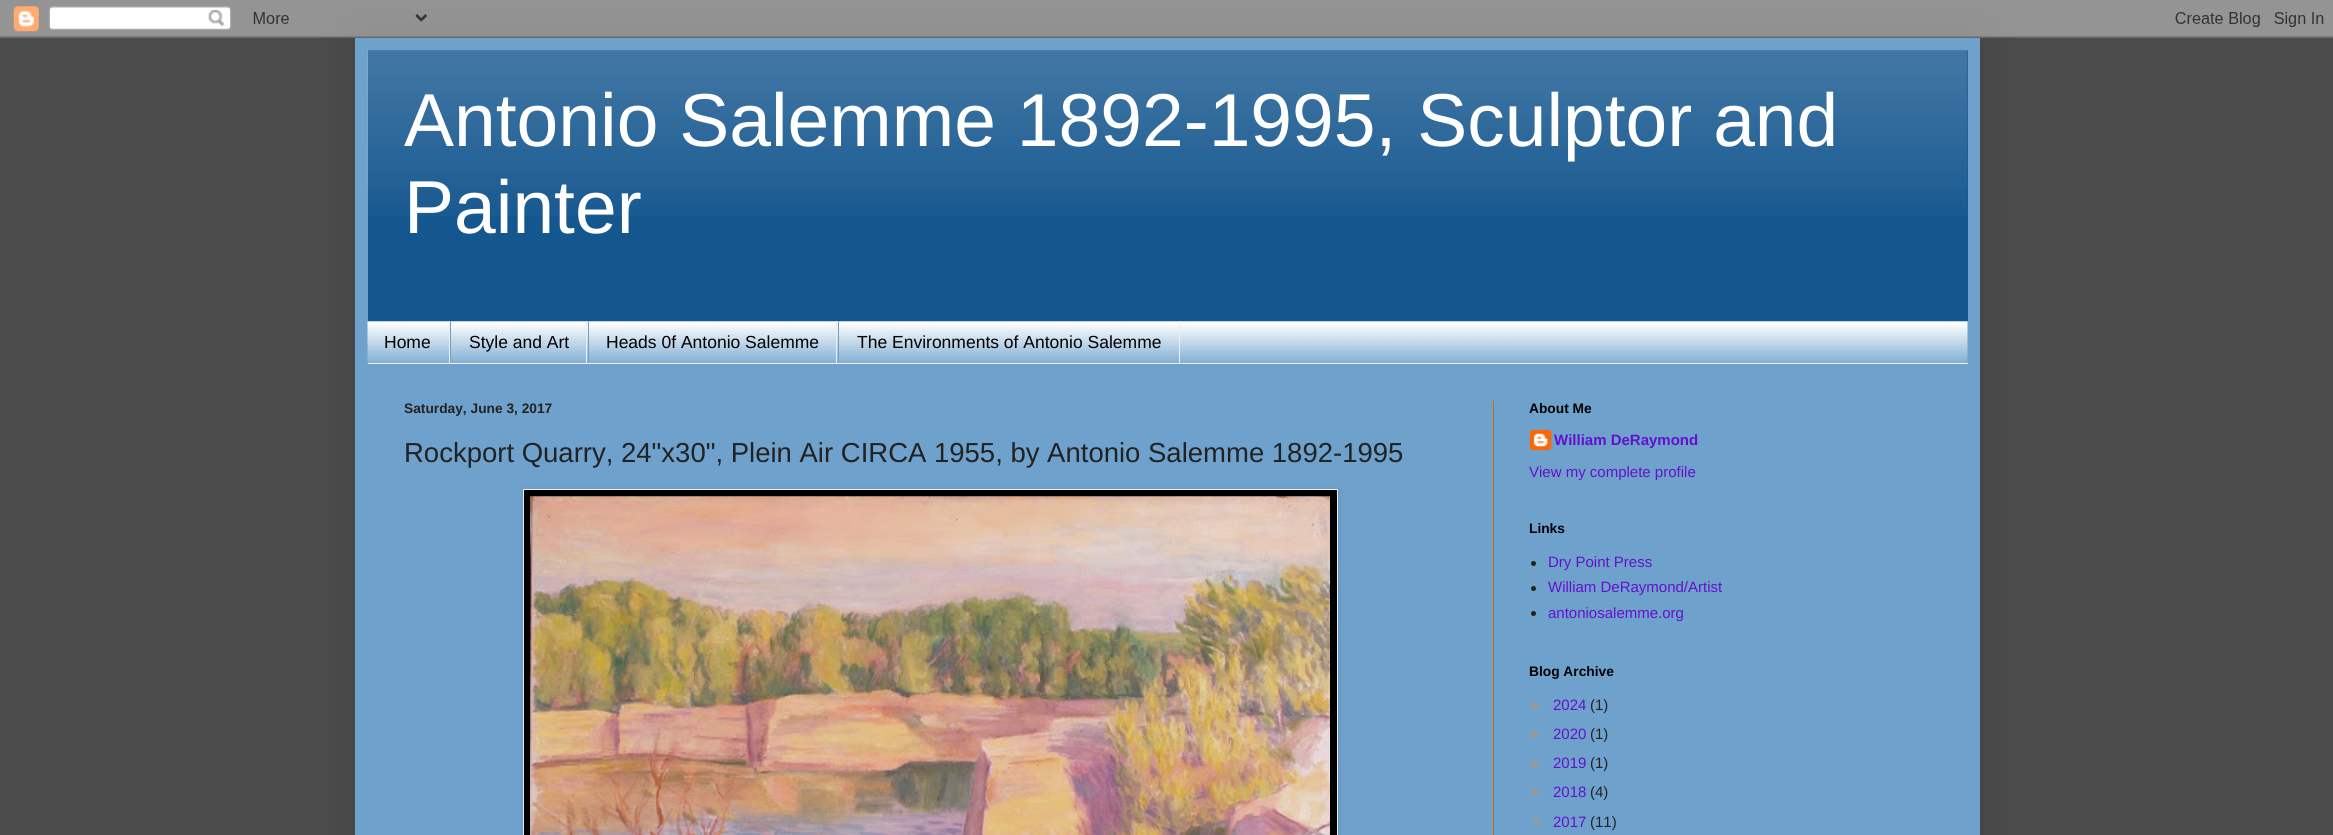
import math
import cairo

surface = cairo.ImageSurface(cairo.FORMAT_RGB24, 2333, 835)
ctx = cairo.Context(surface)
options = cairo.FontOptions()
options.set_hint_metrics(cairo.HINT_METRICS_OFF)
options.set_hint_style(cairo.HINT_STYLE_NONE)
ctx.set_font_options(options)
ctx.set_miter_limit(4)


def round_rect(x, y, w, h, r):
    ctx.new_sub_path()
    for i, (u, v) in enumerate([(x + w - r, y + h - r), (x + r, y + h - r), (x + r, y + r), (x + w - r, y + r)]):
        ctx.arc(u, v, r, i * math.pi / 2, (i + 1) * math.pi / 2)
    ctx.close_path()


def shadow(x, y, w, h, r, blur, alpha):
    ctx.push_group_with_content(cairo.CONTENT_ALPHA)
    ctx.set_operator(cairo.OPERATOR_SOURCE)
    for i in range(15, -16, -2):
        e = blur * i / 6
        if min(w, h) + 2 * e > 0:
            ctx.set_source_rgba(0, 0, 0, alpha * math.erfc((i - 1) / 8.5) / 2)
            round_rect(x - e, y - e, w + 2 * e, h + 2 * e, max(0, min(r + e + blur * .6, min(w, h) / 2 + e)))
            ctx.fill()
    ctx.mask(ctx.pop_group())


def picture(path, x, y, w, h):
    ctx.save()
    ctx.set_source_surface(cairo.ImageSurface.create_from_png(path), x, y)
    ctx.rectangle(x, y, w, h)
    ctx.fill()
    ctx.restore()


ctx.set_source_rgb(0.298, 0.298, 0.298)
ctx.paint()
ctx.set_source_rgb(0, 0, 0)
shadow(355, 38, 1625, 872, 0, 25, 0.15)
picture("img1.png", 0, 0, 2333, 38)
ctx.set_source_rgb(0.431, 0.631, 0.8)
ctx.rectangle(355, 38, 1625, 797)
ctx.fill()
ctx.set_source_rgb(0.082, 0.337, 0.557)
ctx.rectangle(368, 50, 1600, 271)
ctx.fill()
picture("img2.png", 367, 50, 1601, 166)
ctx.select_font_face("Liberation Sans")
ctx.set_font_size(75)
ctx.set_source_rgb(1, 1, 1)
ctx.move_to(404, 146)
ctx.show_text("Antonio Salemme 1892-1995, Sculptor and")
ctx.move_to(404, 233)
ctx.show_text("Painter")
picture("img3.png", 367, 321, 1601, 43)
ctx.set_source_rgb(0.933, 0.933, 0.933)
ctx.rectangle(368, 363, 1600, 1)
ctx.fill()
ctx.rectangle(449, 321, 1, 42)
ctx.fill()
ctx.set_font_size(17.5)
ctx.set_source_rgb(0, 0, 0)
ctx.move_to(384, 348)
ctx.show_text("Home")
ctx.set_source_rgb(0.933, 0.933, 0.933)
ctx.rectangle(586, 321, 1, 42)
ctx.fill()
ctx.set_source_rgb(0.431, 0.631, 0.8)
ctx.rectangle(450, 321, 1, 42)
ctx.fill()
ctx.set_source_rgb(0, 0, 0)
ctx.move_to(469, 348)
ctx.show_text("Style and Art")
ctx.set_source_rgb(0.933, 0.933, 0.933)
ctx.rectangle(836, 321, 1, 42)
ctx.fill()
ctx.set_source_rgb(0.431, 0.631, 0.8)
ctx.rectangle(588, 321, 1, 42)
ctx.fill()
ctx.set_source_rgb(0, 0, 0)
ctx.move_to(606, 348)
ctx.show_text("Heads 0f Antonio Salemme")
ctx.set_source_rgb(0.933, 0.933, 0.933)
ctx.rectangle(1179, 321, 1, 42)
ctx.fill()
ctx.set_source_rgb(0.431, 0.631, 0.8)
ctx.rectangle(838, 321, 1, 42)
ctx.fill()
ctx.set_source_rgb(0, 0, 0)
ctx.move_to(857, 348)
ctx.show_text("The Environments of Antonio Salemme")
ctx.set_source_rgb(0.8, 0.4, 0.067)
ctx.rectangle(1493, 401, 1, 434)
ctx.fill()
ctx.select_font_face("Liberation Sans", cairo.FONT_SLANT_NORMAL, cairo.FONT_WEIGHT_BOLD)
ctx.set_font_size(13.75)
ctx.set_source_rgb(0.133, 0.133, 0.133)
ctx.move_to(404, 413)
ctx.show_text("Saturday, June 3, 2017")
ctx.select_font_face("Liberation Sans")
ctx.set_font_size(27.5)
ctx.move_to(404, 462)
ctx.show_text("Rockport Quarry, 24\"x30\", Plein Air CIRCA 1955, by Antonio Salemme 1892-1995")
ctx.set_source_rgb(0, 0, 0)
shadow(524, 490, 815, 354, 0, 3, 0.1)
ctx.set_source_rgb(0, 0, 0)
ctx.rectangle(523.5, 489.5, 814, 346)
ctx.fill_preserve()
ctx.set_source_rgb(0.933, 0.933, 0.933)
ctx.set_line_width(1)
ctx.stroke()
picture("img4.png", 530, 496, 800, 339)
ctx.select_font_face("Liberation Sans", cairo.FONT_SLANT_NORMAL, cairo.FONT_WEIGHT_BOLD)
ctx.set_font_size(13.75)
ctx.set_source_rgb(0, 0, 0)
ctx.move_to(1529, 413)
ctx.show_text("About Me")
picture("img5.png", 1530, 430, 22, 20)
ctx.set_font_size(15)
ctx.set_source_rgb(0.396, 0.067, 0.8)
ctx.move_to(1554, 445)
ctx.show_text("William DeRaymond")
ctx.select_font_face("Liberation Sans")
ctx.move_to(1529, 477)
ctx.show_text("View my complete profile")
ctx.select_font_face("Liberation Sans", cairo.FONT_SLANT_NORMAL, cairo.FONT_WEIGHT_BOLD)
ctx.set_font_size(13.75)
ctx.set_source_rgb(0, 0, 0)
ctx.move_to(1529, 533)
ctx.show_text("Links")
ctx.set_source_rgb(0.133, 0.133, 0.133)
ctx.new_path()
ctx.arc(1533.5, 563.5, 2.5, 0, 2 * math.pi)
ctx.fill()
ctx.select_font_face("Liberation Sans")
ctx.set_font_size(15)
ctx.set_source_rgb(0.396, 0.067, 0.8)
ctx.move_to(1548, 567)
ctx.show_text("Dry Point Press")
ctx.set_source_rgb(0.133, 0.133, 0.133)
ctx.new_path()
ctx.arc(1533.5, 588.5, 2.5, 0, 2 * math.pi)
ctx.fill()
ctx.set_source_rgb(0.396, 0.067, 0.8)
ctx.move_to(1548, 592)
ctx.show_text("William DeRaymond/Artist")
ctx.set_source_rgb(0.133, 0.133, 0.133)
ctx.new_path()
ctx.arc(1533.5, 613.5, 2.5, 0, 2 * math.pi)
ctx.fill()
ctx.set_source_rgb(0.396, 0.067, 0.8)
ctx.move_to(1548, 618)
ctx.show_text("antoniosalemme.org")
ctx.select_font_face("Liberation Sans", cairo.FONT_SLANT_NORMAL, cairo.FONT_WEIGHT_BOLD)
ctx.set_font_size(13.75)
ctx.set_source_rgb(0, 0, 0)
ctx.move_to(1529, 676)
ctx.show_text("Blog Archive")
ctx.select_font_face("Liberation Sans")
ctx.set_font_size(15)
ctx.set_source_rgb(0.6, 0.6, 0.6)
ctx.move_to(1529, 710)
ctx.show_text("►")
ctx.set_source_rgb(0.396, 0.067, 0.8)
ctx.move_to(1553, 710)
ctx.show_text("2024")
ctx.set_source_rgb(0.133, 0.133, 0.133)
ctx.move_to(1590, 710)
ctx.show_text("(1)")
ctx.set_source_rgb(0.6, 0.6, 0.6)
ctx.move_to(1529, 739)
ctx.show_text("►")
ctx.set_source_rgb(0.396, 0.067, 0.8)
ctx.move_to(1553, 739)
ctx.show_text("2020")
ctx.set_source_rgb(0.133, 0.133, 0.133)
ctx.move_to(1590, 739)
ctx.show_text("(1)")
ctx.set_source_rgb(0.6, 0.6, 0.6)
ctx.move_to(1529, 768)
ctx.show_text("►")
ctx.set_source_rgb(0.396, 0.067, 0.8)
ctx.move_to(1553, 768)
ctx.show_text("2019")
ctx.set_source_rgb(0.133, 0.133, 0.133)
ctx.move_to(1590, 768)
ctx.show_text("(1)")
ctx.set_source_rgb(0.6, 0.6, 0.6)
ctx.move_to(1529, 797)
ctx.show_text("►")
ctx.set_source_rgb(0.396, 0.067, 0.8)
ctx.move_to(1553, 797)
ctx.show_text("2018")
ctx.set_source_rgb(0.133, 0.133, 0.133)
ctx.move_to(1590, 797)
ctx.show_text("(4)")
ctx.set_source_rgb(0.6, 0.6, 0.6)
ctx.move_to(1529, 827)
ctx.show_text("▼")
ctx.set_source_rgb(0.396, 0.067, 0.8)
ctx.move_to(1553, 827)
ctx.show_text("2017")
ctx.set_source_rgb(0.133, 0.133, 0.133)
ctx.move_to(1590, 827)
ctx.show_text("(11)")
surface.write_to_png("page.png")
